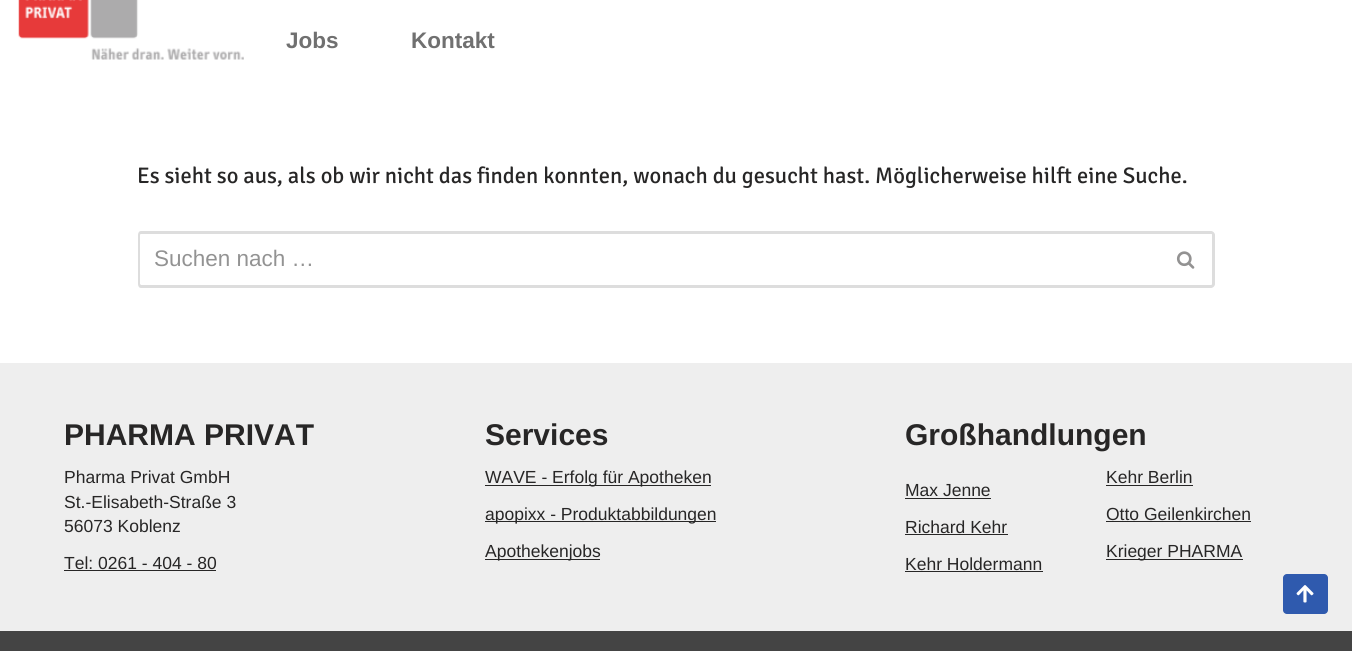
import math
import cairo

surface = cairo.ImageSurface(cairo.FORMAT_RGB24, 1352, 651)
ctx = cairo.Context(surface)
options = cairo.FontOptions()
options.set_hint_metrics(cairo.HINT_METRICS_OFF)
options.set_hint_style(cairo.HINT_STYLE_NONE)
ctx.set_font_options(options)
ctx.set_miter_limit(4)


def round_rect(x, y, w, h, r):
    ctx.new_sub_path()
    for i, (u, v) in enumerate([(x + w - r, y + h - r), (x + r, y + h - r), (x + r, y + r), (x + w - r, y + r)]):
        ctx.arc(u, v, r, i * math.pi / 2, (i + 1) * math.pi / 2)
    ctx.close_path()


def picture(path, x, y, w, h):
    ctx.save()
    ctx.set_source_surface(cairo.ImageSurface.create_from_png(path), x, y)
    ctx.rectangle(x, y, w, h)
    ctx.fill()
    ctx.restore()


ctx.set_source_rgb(1, 1, 1)
ctx.paint()
picture("img1.png", 18, 0, 226, 60)
ctx.select_font_face("Liberation Sans", cairo.FONT_SLANT_NORMAL, cairo.FONT_WEIGHT_BOLD)
ctx.set_font_size(22.5)
ctx.set_source_rgb(0.439, 0.439, 0.439)
ctx.move_to(286, 48)
ctx.show_text("Jobs")
ctx.move_to(411, 48)
ctx.show_text("Kontakt")
ctx.select_font_face("Signika")
ctx.set_source_rgb(0.153, 0.149, 0.149)
ctx.move_to(137, 183)
ctx.show_text("Es sieht so aus, als ob wir nicht das finden konnten, wonach du gesucht hast. Möglicherweise hilft eine Suche.")
ctx.set_source_rgb(0.867, 0.867, 0.867)
ctx.set_fill_rule(cairo.FILL_RULE_EVEN_ODD)
ctx.new_path()
ctx.move_to(141, 231)
ctx.line_to(1159, 231)
ctx.line_to(1159, 288)
ctx.line_to(141, 288)
ctx.curve_to(139, 288, 138, 286, 138, 284)
ctx.line_to(138, 235)
ctx.curve_to(138, 233, 139, 231, 141, 231)
ctx.close_path()
ctx.move_to(141, 234)
ctx.line_to(1159, 234)
ctx.line_to(1159, 285)
ctx.line_to(141, 285)
ctx.curve_to(141, 285, 140, 284, 140, 284)
ctx.line_to(140, 235)
ctx.curve_to(140, 234, 141, 234, 141, 234)
ctx.close_path()
ctx.fill()
ctx.select_font_face("Liberation Sans")
ctx.set_source_rgb(0.576, 0.576, 0.576)
ctx.move_to(154, 266)
ctx.show_text("Suchen nach …")
ctx.set_source_rgb(0.867, 0.867, 0.867)
ctx.new_path()
ctx.move_to(1159, 231)
ctx.line_to(1211, 231)
ctx.curve_to(1213, 231, 1215, 233, 1215, 235)
ctx.line_to(1215, 284)
ctx.curve_to(1215, 286, 1213, 288, 1211, 288)
ctx.line_to(1159, 288)
ctx.close_path()
ctx.move_to(1159, 234)
ctx.line_to(1211, 234)
ctx.curve_to(1212, 234, 1212, 234, 1212, 235)
ctx.line_to(1212, 284)
ctx.curve_to(1212, 284, 1212, 285, 1211, 285)
ctx.line_to(1159, 285)
ctx.close_path()
ctx.fill()
picture("img2.png", 1176, 251, 19, 18)
ctx.set_source_rgb(0.933, 0.933, 0.933)
ctx.rectangle(0, 363, 1352, 268)
ctx.fill()
ctx.select_font_face("Liberation Sans", cairo.FONT_SLANT_NORMAL, cairo.FONT_WEIGHT_BOLD)
ctx.set_font_size(30)
ctx.set_source_rgb(0.153, 0.149, 0.149)
ctx.move_to(64, 445)
ctx.show_text("PHARMA PRIVAT")
ctx.select_font_face("Liberation Sans")
ctx.set_font_size(17.5)
ctx.move_to(64, 483)
ctx.show_text("Pharma Privat GmbH")
ctx.move_to(64, 508)
ctx.show_text("St.-Elisabeth-Straße 3")
ctx.move_to(64, 532)
ctx.show_text("56073 Koblenz")
ctx.move_to(64, 569)
ctx.show_text("Tel: 0261 - 404 - 80")
ctx.rectangle(64, 570, 152, 1)
ctx.fill()
ctx.select_font_face("Liberation Sans", cairo.FONT_SLANT_NORMAL, cairo.FONT_WEIGHT_BOLD)
ctx.set_font_size(30)
ctx.move_to(485, 445)
ctx.show_text("Services")
ctx.rectangle(485, 485, 226, 1)
ctx.fill()
ctx.select_font_face("Liberation Sans")
ctx.set_font_size(17.5)
ctx.move_to(485, 483)
ctx.show_text("WAVE - Erfolg für Apotheken")
ctx.rectangle(485, 521, 231, 1)
ctx.fill()
ctx.move_to(485, 520)
ctx.show_text("apopixx - Produktabbildungen")
ctx.rectangle(485, 559, 115, 1)
ctx.fill()
ctx.move_to(485, 557)
ctx.show_text("Apothekenjobs")
ctx.select_font_face("Liberation Sans", cairo.FONT_SLANT_NORMAL, cairo.FONT_WEIGHT_BOLD)
ctx.set_font_size(30)
ctx.move_to(905, 445)
ctx.show_text("Großhandlungen")
ctx.select_font_face("Liberation Sans")
ctx.set_font_size(17.5)
ctx.move_to(1106, 483)
ctx.show_text("Kehr Berlin")
ctx.rectangle(1106, 485, 87, 1)
ctx.fill()
ctx.move_to(905, 496)
ctx.show_text("Max Jenne")
ctx.rectangle(905, 498, 86, 1)
ctx.fill()
ctx.move_to(1106, 520)
ctx.show_text("Otto Geilenkirchen")
ctx.rectangle(1106, 521, 145, 1)
ctx.fill()
ctx.move_to(905, 533)
ctx.show_text("Richard Kehr")
ctx.rectangle(905, 534, 103, 1)
ctx.fill()
ctx.rectangle(1106, 559, 137, 1)
ctx.fill()
ctx.move_to(1106, 557)
ctx.show_text("Krieger PHARMA")
ctx.move_to(905, 570)
ctx.show_text("Kehr Holdermann")
ctx.rectangle(905, 571, 138, 1)
ctx.fill()
ctx.set_source_rgb(0.267, 0.267, 0.267)
ctx.rectangle(0, 631, 1352, 20)
ctx.fill()
ctx.set_source_rgb(0.184, 0.353, 0.682)
round_rect(1283, 574, 45, 40, 4)
ctx.fill()
picture("img3.png", 1296, 585, 18, 18)
surface.write_to_png("page.png")
